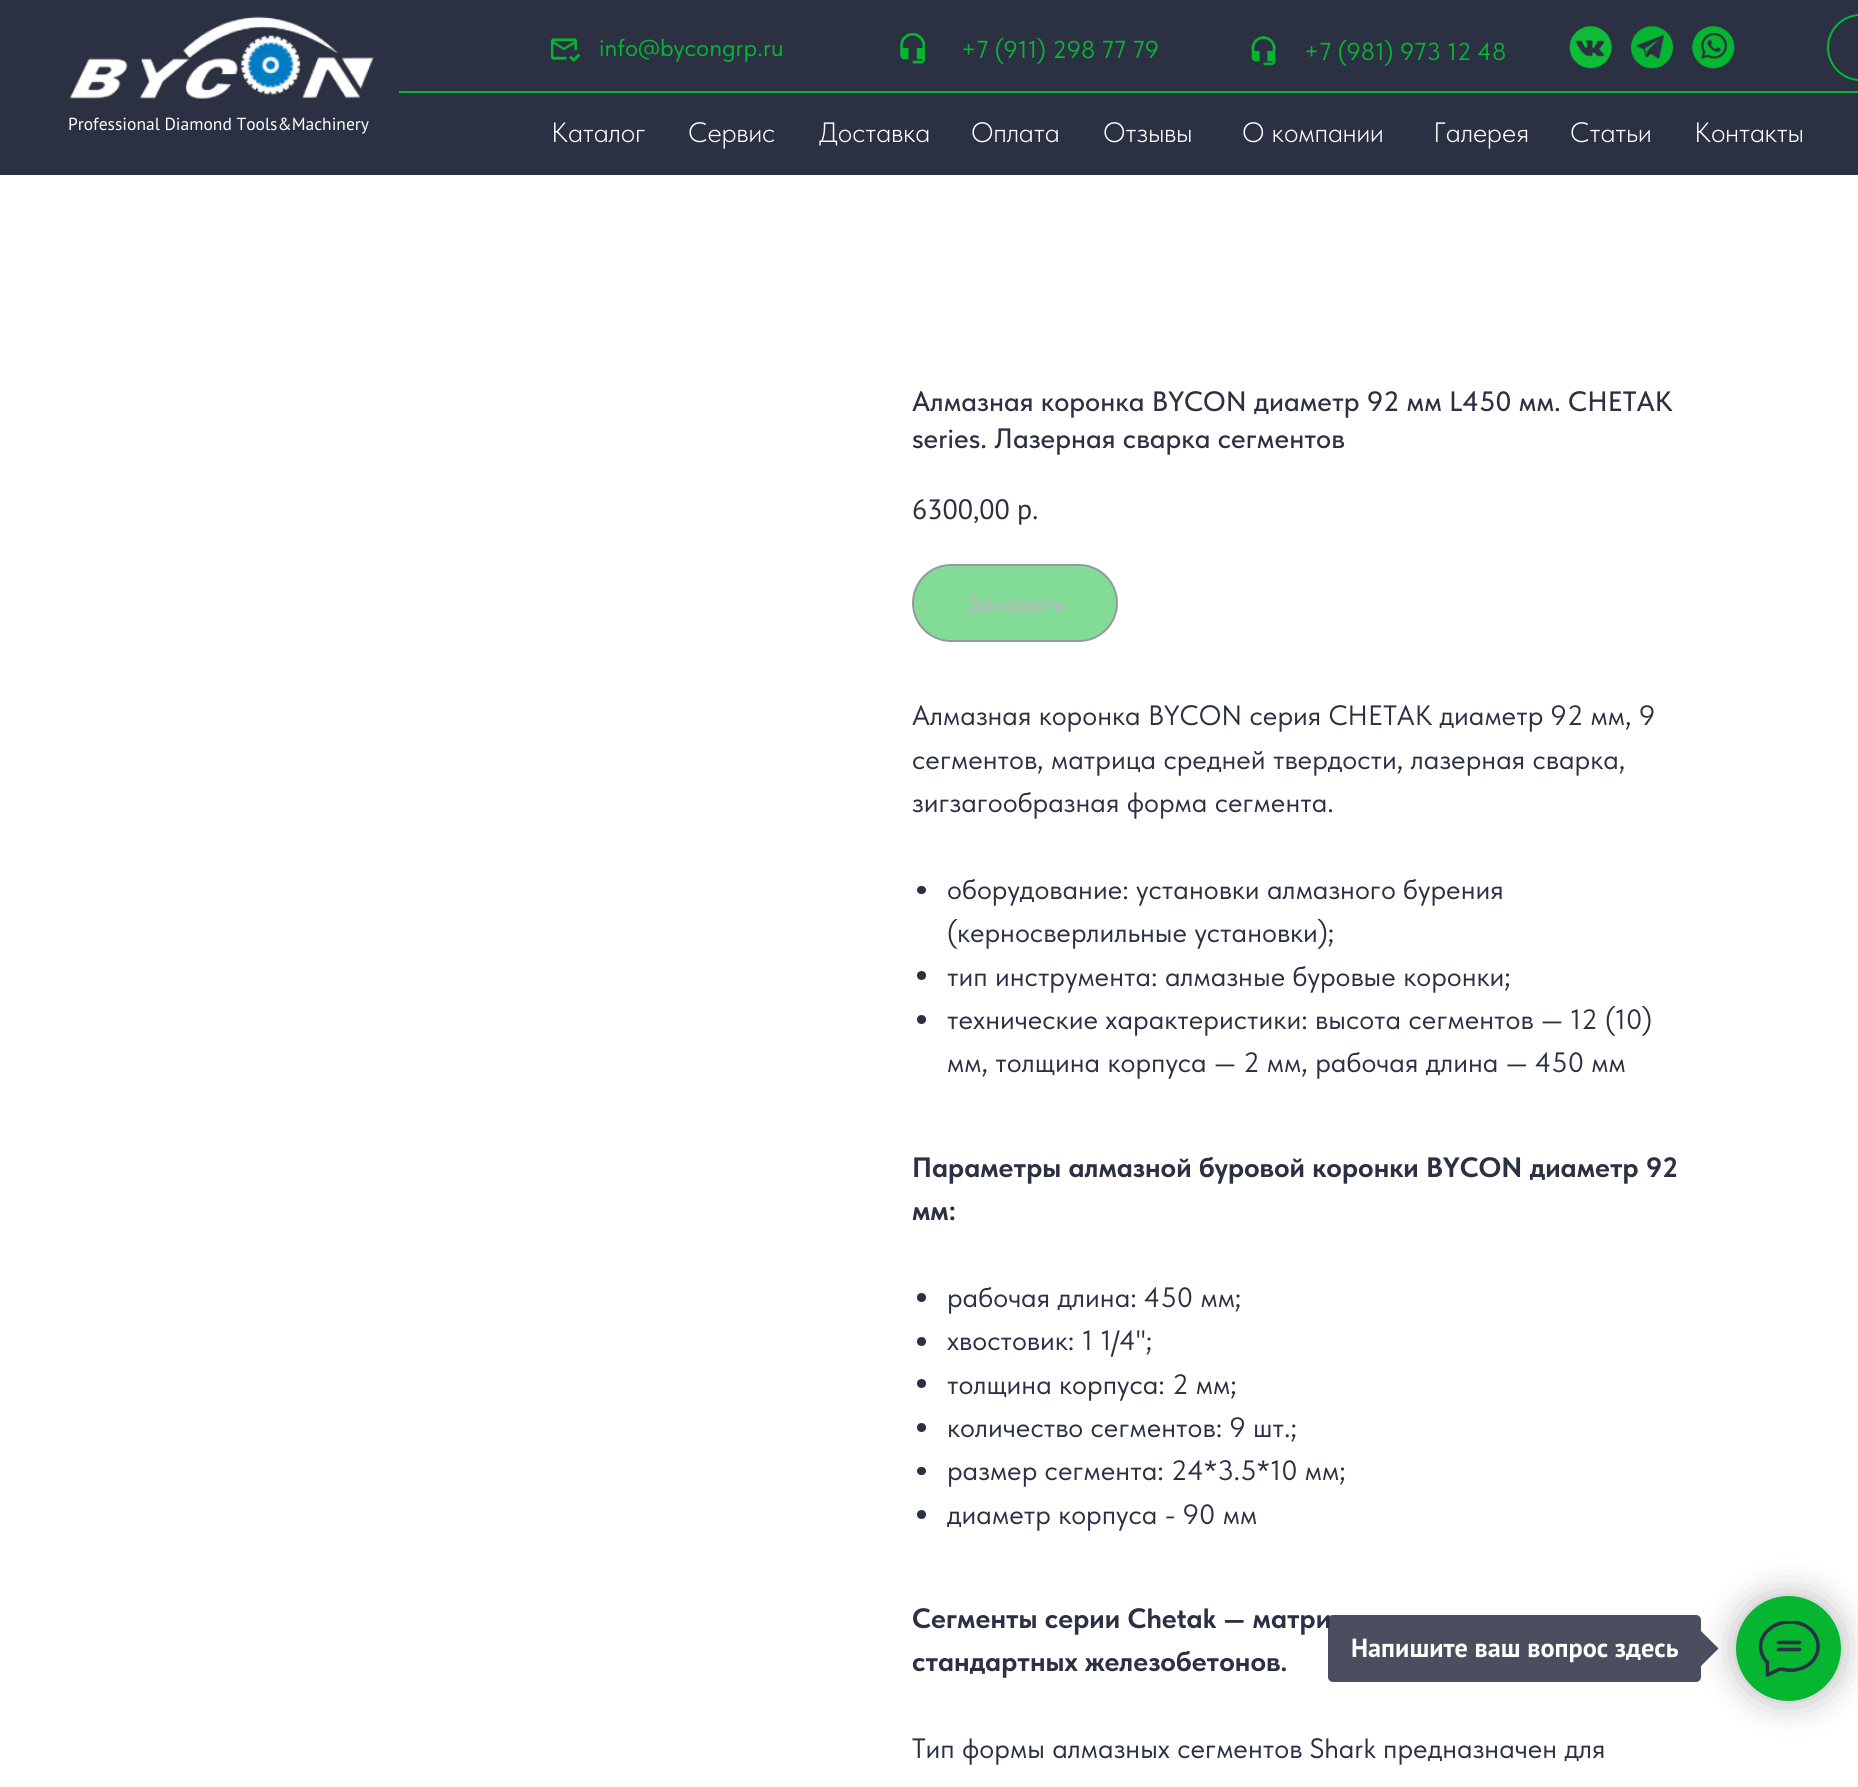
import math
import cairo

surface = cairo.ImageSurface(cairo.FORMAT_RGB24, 1858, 1787)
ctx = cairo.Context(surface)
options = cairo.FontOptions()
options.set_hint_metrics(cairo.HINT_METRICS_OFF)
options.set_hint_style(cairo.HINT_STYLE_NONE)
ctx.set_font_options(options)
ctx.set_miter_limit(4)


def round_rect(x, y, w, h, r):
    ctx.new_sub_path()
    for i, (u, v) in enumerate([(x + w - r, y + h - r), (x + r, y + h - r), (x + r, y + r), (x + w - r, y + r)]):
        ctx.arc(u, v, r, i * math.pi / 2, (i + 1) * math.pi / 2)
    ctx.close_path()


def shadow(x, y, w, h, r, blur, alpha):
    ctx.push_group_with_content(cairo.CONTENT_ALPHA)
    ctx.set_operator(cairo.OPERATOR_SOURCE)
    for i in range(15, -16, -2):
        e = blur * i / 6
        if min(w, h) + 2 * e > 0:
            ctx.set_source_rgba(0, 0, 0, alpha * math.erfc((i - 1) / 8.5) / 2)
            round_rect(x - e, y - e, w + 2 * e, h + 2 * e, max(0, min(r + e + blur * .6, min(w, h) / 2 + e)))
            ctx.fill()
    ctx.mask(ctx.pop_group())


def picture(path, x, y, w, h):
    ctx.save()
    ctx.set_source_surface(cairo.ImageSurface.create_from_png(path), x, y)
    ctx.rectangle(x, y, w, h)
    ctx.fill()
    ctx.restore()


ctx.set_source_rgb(0.169, 0.188, 0.263)
ctx.paint()
picture("img1.png", 69, 16, 305, 84)
picture("img2.png", 550, 38, 31, 25)
ctx.select_font_face("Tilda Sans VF")
ctx.set_font_size(24.5)
ctx.set_source_rgb(0.024, 0.714, 0.192)
ctx.move_to(599, 56)
ctx.show_text("info@bycongrp.ru")
picture("img3.png", 900, 33, 26, 31)
ctx.move_to(961, 58)
ctx.show_text("+7 (911) 298 77 79")
picture("img4.png", 1251, 36, 25, 30)
ctx.move_to(1304, 60)
ctx.show_text("+7 (981) 973 12 48")
picture("img5.png", 1569, 26, 43, 43)
picture("img6.png", 1631, 26, 42, 43)
picture("img7.png", 1692, 26, 43, 43)
ctx.arc(1860.5, 47.5, 32.5, 0, 2 * math.pi)
ctx.stroke()
ctx.rectangle(399, 91, 1459, 2)
ctx.fill()
ctx.select_font_face("PT Sans")
ctx.set_font_size(17.5)
ctx.set_source_rgb(1, 1, 1)
ctx.move_to(68, 130)
ctx.show_text("Professional Diamond Tools&Machinery")
ctx.select_font_face("Tilda Sans VF Light")
ctx.set_font_size(28)
ctx.move_to(551, 142)
ctx.show_text("Каталог")
ctx.move_to(688, 142)
ctx.show_text("Сервис")
ctx.move_to(819, 142)
ctx.show_text("Доставка")
ctx.move_to(971, 142)
ctx.show_text("Оплата")
ctx.move_to(1103, 142)
ctx.show_text("Отзывы")
ctx.move_to(1242, 142)
ctx.show_text("О компании")
ctx.move_to(1433, 142)
ctx.show_text("Галерея")
ctx.move_to(1570, 142)
ctx.show_text("Статьи")
ctx.move_to(1694, 142)
ctx.show_text("Контакты")
ctx.rectangle(0, 175, 1858, 1612)
ctx.fill()
ctx.select_font_face("Tilda Sans VF", cairo.FONT_SLANT_NORMAL, cairo.FONT_WEIGHT_BOLD)
ctx.set_source_rgb(0.169, 0.188, 0.263)
ctx.move_to(912, 1628)
ctx.show_text("Сегменты серии Chetak — матри")
ctx.set_source_rgba(0.169, 0.188, 0.263, 0.85)
round_rect(1328, 1615, 373, 67, 5)
ctx.fill()
ctx.select_font_face("PT Sans", cairo.FONT_SLANT_NORMAL, cairo.FONT_WEIGHT_BOLD)
ctx.set_font_size(26.25)
ctx.set_source_rgb(1, 1, 1)
ctx.move_to(1351, 1657)
ctx.show_text("Напишите ваш вопрос здесь")
ctx.set_source_rgb(0.294, 0.31, 0.373)
ctx.new_path()
ctx.move_to(1701, 1666)
ctx.line_to(1701, 1631)
ctx.line_to(1718.5, 1648.5)
ctx.close_path()
ctx.fill()
ctx.set_source_rgb(0, 0, 0)
shadow(1736, 1596, 105, 105, 52.5, 17.5, 0.3)
ctx.set_source_rgb(0.024, 0.714, 0.192)
ctx.arc(1788.5, 1648.5, 52.5, 0, 2 * math.pi)
ctx.fill()
ctx.save()
ctx.rectangle(1759, 1621, 61, 56)
ctx.clip()
ctx.new_path()
ctx.move_to(1778.5, 1642.5)
ctx.line_to(1799.5, 1642.5)
ctx.move_to(1778.5, 1649.5)
ctx.line_to(1799.5, 1649.5)
ctx.move_to(1767, 1662)
ctx.curve_to(1758, 1652.5, 1758.5, 1638, 1769, 1629.5)
ctx.curve_to(1774.5, 1624.5, 1782, 1622, 1789.5, 1622)
ctx.curve_to(1823.5, 1622, 1829.5, 1664, 1795, 1670)
ctx.curve_to(1789, 1671, 1785.5, 1669.5, 1780, 1669)
ctx.line_to(1767.5, 1675)
ctx.line_to(1767.5, 1662)
ctx.close_path()
ctx.set_source_rgb(0.169, 0.188, 0.263)
ctx.set_line_width(3.5)
ctx.set_line_cap(cairo.LINE_CAP_ROUND)
ctx.set_line_join(cairo.LINE_JOIN_ROUND)
ctx.stroke()
ctx.restore()
ctx.select_font_face("Tilda Sans VF Medium")
ctx.set_font_size(28)
ctx.set_source_rgb(0.169, 0.188, 0.263)
ctx.move_to(912, 411)
ctx.show_text("Алмазная коронка BYCON диаметр 92 мм L450 мм. CHETAK")
ctx.move_to(912, 448)
ctx.show_text("series. Лазерная сварка сегментов")
ctx.select_font_face("PT Sans")
ctx.move_to(912, 519)
ctx.show_text("6300,00")
ctx.move_to(1017, 519)
ctx.show_text("р.")
ctx.set_source_rgb(0.514, 0.859, 0.596)
round_rect(913, 565, 204, 76, 38)
ctx.fill_preserve()
ctx.set_source_rgb(0.584, 0.596, 0.631)
ctx.stroke()
ctx.select_font_face("Tilda Sans VF Medium")
ctx.set_font_size(24.5)
ctx.set_source_rgb(0.71, 0.718, 0.741)
ctx.move_to(966, 612)
ctx.show_text("Заказать")
ctx.select_font_face("Tilda Sans VF")
ctx.set_font_size(28)
ctx.set_source_rgb(0.169, 0.188, 0.263)
ctx.move_to(912, 725)
ctx.show_text("Алмазная коронка BYCON серия CHETAK диаметр 92 мм, 9")
ctx.move_to(912, 769)
ctx.show_text("сегментов, матрица средней твердости, лазерная сварка,")
ctx.move_to(912, 812)
ctx.show_text("зигзагообразная форма сегмента.")
round_rect(917, 886, 9, 8, 4)
ctx.fill()
ctx.move_to(947, 899)
ctx.show_text("оборудование: установки алмазного бурения")
ctx.move_to(947, 942)
ctx.show_text("(керносверлильные установки);")
ctx.new_path()
ctx.arc(921.5, 975.5, 4.5, 0, 2 * math.pi)
ctx.fill()
ctx.move_to(947, 986)
ctx.show_text("тип инструмента: алмазные буровые коронки;")
ctx.new_path()
ctx.arc(921.5, 1019.5, 4.5, 0, 2 * math.pi)
ctx.fill()
ctx.move_to(947, 1029)
ctx.show_text("технические характеристики: высота сегментов — 12 (10)")
ctx.move_to(947, 1072)
ctx.show_text("мм, толщина корпуса — 2 мм, рабочая длина — 450 мм")
ctx.select_font_face("Tilda Sans VF", cairo.FONT_SLANT_NORMAL, cairo.FONT_WEIGHT_BOLD)
ctx.move_to(912, 1177)
ctx.show_text("Параметры алмазной буровой коронки BYCON диаметр 92")
ctx.move_to(912, 1220)
ctx.show_text("мм:")
ctx.new_path()
ctx.arc(921.5, 1297.5, 4.5, 0, 2 * math.pi)
ctx.fill()
ctx.select_font_face("Tilda Sans VF")
ctx.move_to(947, 1307)
ctx.show_text("рабочая длина: 450 мм;")
ctx.new_path()
ctx.arc(921.5, 1341.5, 4.5, 0, 2 * math.pi)
ctx.fill()
ctx.move_to(947, 1350)
ctx.show_text("хвостовик: 1 1/4'';")
ctx.new_path()
ctx.arc(921.5, 1383.5, 4.5, 0, 2 * math.pi)
ctx.fill()
ctx.move_to(947, 1394)
ctx.show_text("толщина корпуса: 2 мм;")
ctx.new_path()
ctx.arc(921.5, 1427.5, 4.5, 0, 2 * math.pi)
ctx.fill()
ctx.move_to(947, 1437)
ctx.show_text("количество сегментов: 9 шт.;")
round_rect(917, 1467, 9, 8, 4)
ctx.fill()
ctx.move_to(947, 1480)
ctx.show_text("размер сегмента: 24*3.5*10 мм;")
ctx.new_path()
ctx.arc(921.5, 1514.5, 4.5, 0, 2 * math.pi)
ctx.fill()
ctx.move_to(947, 1524)
ctx.show_text("диаметр корпуса - 90 мм")
ctx.select_font_face("Tilda Sans VF", cairo.FONT_SLANT_NORMAL, cairo.FONT_WEIGHT_BOLD)
ctx.move_to(912, 1671)
ctx.show_text("стандартных железобетонов.")
ctx.select_font_face("Tilda Sans VF")
ctx.move_to(912, 1758)
ctx.show_text("Тип формы алмазных сегментов Shark предназначен для")
surface.write_to_png("page.png")
